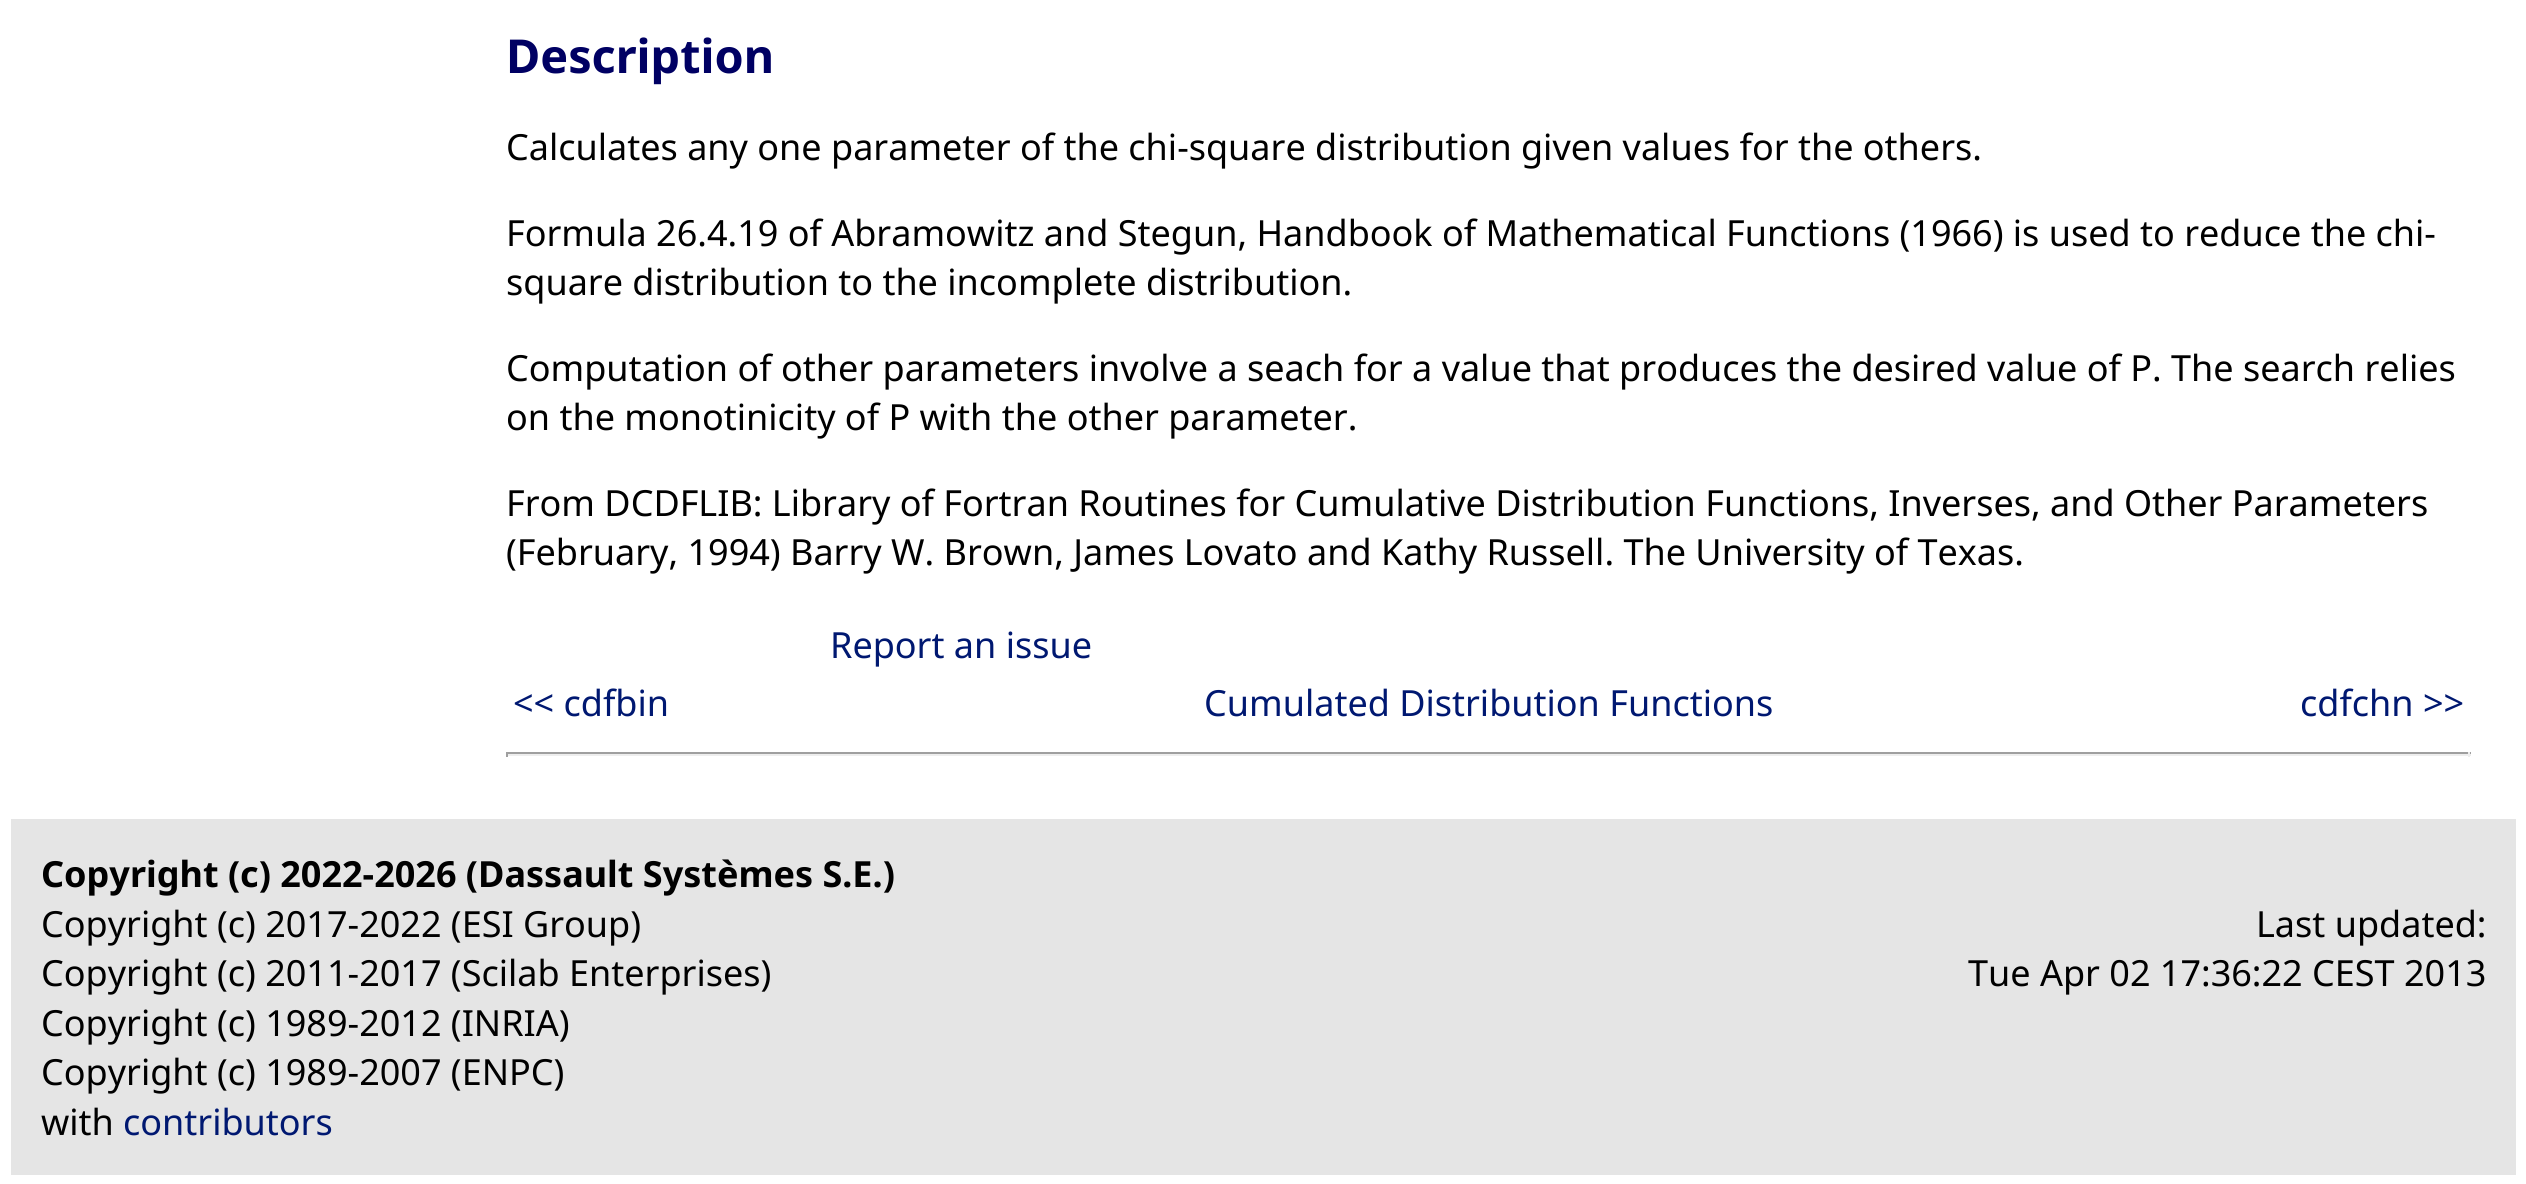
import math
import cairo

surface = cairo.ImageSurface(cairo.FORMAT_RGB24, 2526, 1184)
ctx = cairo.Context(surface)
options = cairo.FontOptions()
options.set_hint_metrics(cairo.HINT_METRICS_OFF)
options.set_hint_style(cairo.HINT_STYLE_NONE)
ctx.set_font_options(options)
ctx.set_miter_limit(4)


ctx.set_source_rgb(1, 1, 1)
ctx.paint()
ctx.select_font_face("Noto Sans", cairo.FONT_SLANT_NORMAL, cairo.FONT_WEIGHT_BOLD)
ctx.set_font_size(46.75)
ctx.set_source_rgb(0, 0, 0.388)
ctx.move_to(506, 73)
ctx.show_text("Description")
ctx.select_font_face("Noto Sans")
ctx.set_font_size(36)
ctx.set_source_rgb(0, 0, 0)
ctx.move_to(506, 160)
ctx.show_text("Calculates any one parameter of the chi-square distribution given values for the others.")
ctx.move_to(506, 246)
ctx.show_text("Formula 26.4.19 of Abramowitz and Stegun, Handbook of Mathematical Functions (1966) is used to reduce the chi-")
ctx.move_to(506, 295)
ctx.show_text("square distribution to the incomplete distribution.")
ctx.move_to(506, 381)
ctx.show_text("Computation of other parameters involve a seach for a value that produces the desired value of P. The search relies")
ctx.move_to(506, 430)
ctx.show_text("on the monotinicity of P with the other parameter.")
ctx.move_to(506, 516)
ctx.show_text("From DCDFLIB: Library of Fortran Routines for Cumulative Distribution Functions, Inverses, and Other Parameters")
ctx.move_to(506, 565)
ctx.show_text("(February, 1994) Barry W. Brown, James Lovato and Kathy Russell. The University of Texas.")
ctx.set_source_rgb(0, 0.094, 0.443)
ctx.move_to(830, 658)
ctx.show_text("Report an issue")
ctx.move_to(513, 716)
ctx.show_text("<< cdfbin")
ctx.move_to(1204, 716)
ctx.show_text("Cumulated Distribution Functions")
ctx.move_to(2300, 716)
ctx.show_text("cdfchn >>")
ctx.set_source_rgb(0.624, 0.624, 0.624)
ctx.rectangle(506, 752, 1965, 2)
ctx.fill()
ctx.set_source_rgb(0.933, 0.933, 0.933)
ctx.rectangle(2468, 752, 2, 5)
ctx.fill()
ctx.rectangle(506, 754, 1965, 2)
ctx.fill()
ctx.set_source_rgb(0.624, 0.624, 0.624)
ctx.rectangle(506, 752, 2, 5)
ctx.fill()
ctx.set_source_rgb(0.898, 0.898, 0.898)
ctx.rectangle(11, 819, 2505, 356)
ctx.fill()
ctx.select_font_face("Noto Sans", cairo.FONT_SLANT_NORMAL, cairo.FONT_WEIGHT_BOLD)
ctx.set_source_rgb(0, 0, 0)
ctx.move_to(41, 887)
ctx.show_text("Copyright (c) 2022-2026 (Dassault Systèmes S.E.)")
ctx.select_font_face("Noto Sans")
ctx.move_to(41, 937)
ctx.show_text("Copyright (c) 2017-2022 (ESI Group)")
ctx.move_to(41, 986)
ctx.show_text("Copyright (c) 2011-2017 (Scilab Enterprises)")
ctx.move_to(41, 1036)
ctx.show_text("Copyright (c) 1989-2012 (INRIA)")
ctx.move_to(41, 1085)
ctx.show_text("Copyright (c) 1989-2007 (ENPC)")
ctx.move_to(41, 1135)
ctx.show_text("with")
ctx.set_source_rgb(0, 0.094, 0.443)
ctx.move_to(123, 1135)
ctx.show_text("contributors")
ctx.set_source_rgb(0, 0, 0)
ctx.move_to(2256, 937)
ctx.show_text("Last updated:")
ctx.move_to(1968, 986)
ctx.show_text("Tue Apr 02 17:36:22 CEST 2013")
surface.write_to_png("page.png")
